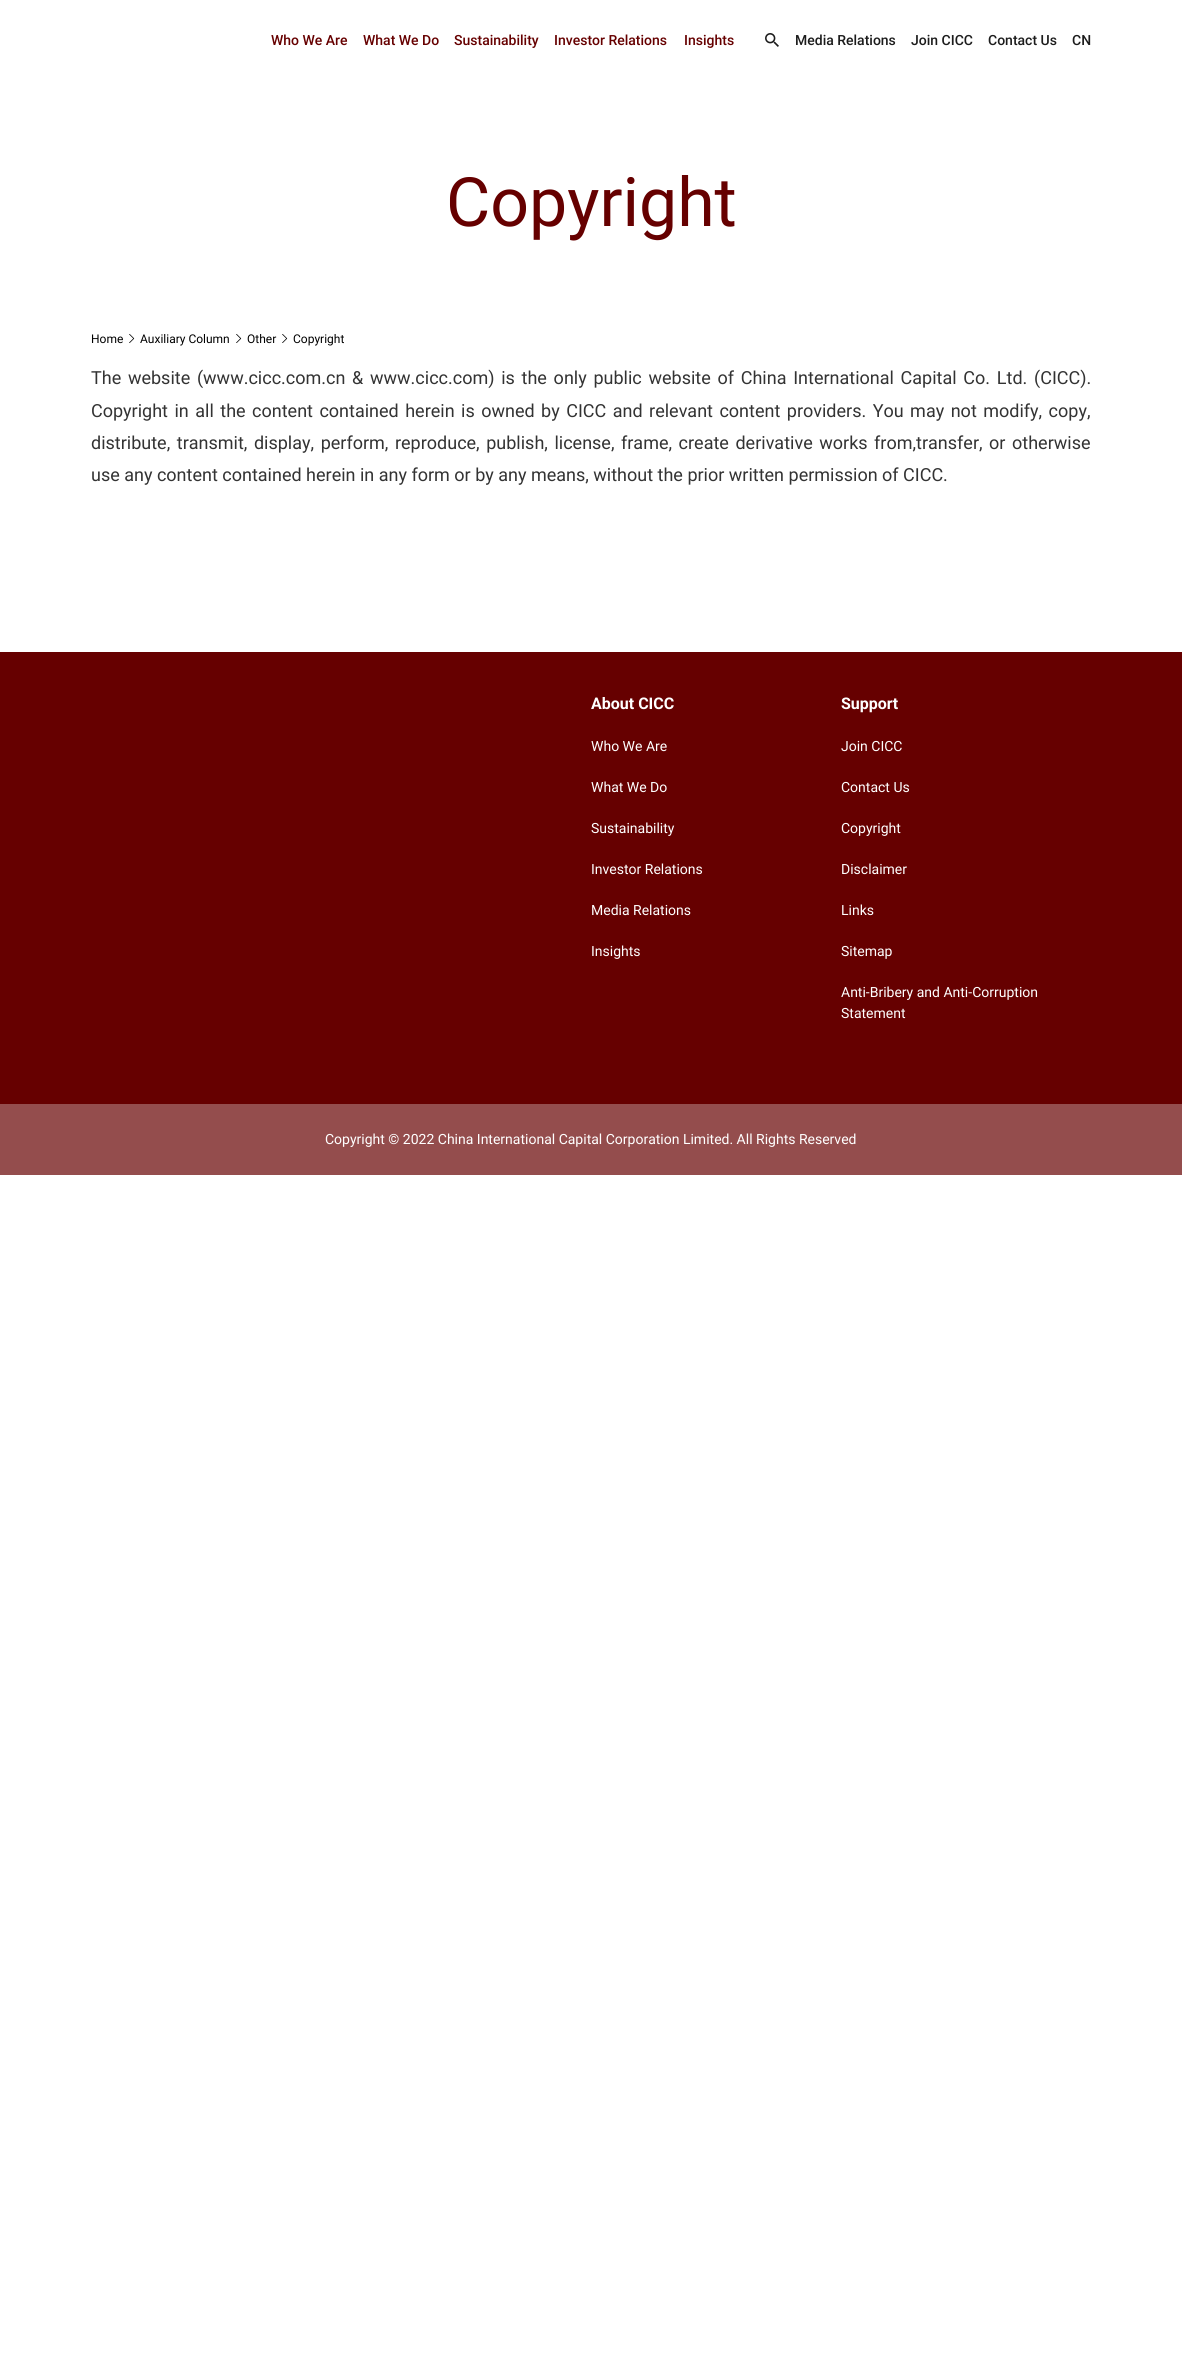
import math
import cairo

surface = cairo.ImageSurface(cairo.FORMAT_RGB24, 1182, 2379)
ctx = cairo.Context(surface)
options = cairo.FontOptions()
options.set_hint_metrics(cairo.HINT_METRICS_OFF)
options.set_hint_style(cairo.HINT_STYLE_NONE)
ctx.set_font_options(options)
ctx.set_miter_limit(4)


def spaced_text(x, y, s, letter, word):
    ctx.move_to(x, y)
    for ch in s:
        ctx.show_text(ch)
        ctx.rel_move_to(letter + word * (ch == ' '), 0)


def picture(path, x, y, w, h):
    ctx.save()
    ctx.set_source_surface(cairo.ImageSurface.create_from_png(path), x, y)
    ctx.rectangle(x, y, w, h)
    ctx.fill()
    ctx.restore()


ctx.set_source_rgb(1, 1, 1)
ctx.paint()
ctx.select_font_face("Roboto Medium")
ctx.set_font_size(14)
ctx.set_source_rgb(0.4, 0, 0)
ctx.move_to(271, 45)
ctx.show_text("Who We Are")
ctx.move_to(363, 45)
ctx.show_text("What We Do")
ctx.move_to(454, 45)
ctx.show_text("Sustainability")
ctx.move_to(554, 45)
ctx.show_text("Investor Relations")
ctx.move_to(684, 45)
ctx.show_text("Insights")
picture("img1.png", 765, 33, 14, 14)
ctx.set_source_rgb(0.11, 0.11, 0.11)
ctx.move_to(795, 45)
ctx.show_text("Media Relations")
ctx.move_to(911, 45)
ctx.show_text("Join CICC")
ctx.move_to(988, 45)
ctx.show_text("Contact Us")
ctx.move_to(1072, 45)
ctx.show_text("CN")
ctx.select_font_face("Roboto")
ctx.set_font_size(68)
ctx.set_source_rgb(0.4, 0, 0)
ctx.move_to(446, 226)
ctx.show_text("Copyright")
ctx.set_font_size(12)
ctx.set_source_rgb(0, 0, 0)
ctx.move_to(91, 343)
ctx.show_text("Home")
picture("img2.png", 129, 334, 6, 9)
ctx.move_to(140, 343)
ctx.show_text("Auxiliary Column")
picture("img2.png", 236, 334, 6, 9)
ctx.move_to(247, 343)
ctx.show_text("Other")
picture("img2.png", 282, 334, 6, 9)
ctx.move_to(293, 343)
ctx.show_text("Copyright")
ctx.set_font_size(18)
ctx.set_source_rgb(0.2, 0.2, 0.2)
spaced_text(91, 384, "The website (www.cicc.com.cn & www.cicc.com) is the only public website of China International Capital Co. Ltd. (CICC).", 0, 2.25)
spaced_text(91, 417, "Copyright in all the content contained herein is owned by CICC and relevant content providers. You may not modify, copy,", 0, 2)
spaced_text(91, 449, "distribute, transmit, display, perform, reproduce, publish, license, frame, create derivative works from,transfer, or otherwise", 0, 2.1)
ctx.move_to(91, 481)
ctx.show_text("use any content contained herein in any form or by any means, without the prior written permission of CICC.")
ctx.set_source_rgb(0.4, 0, 0)
ctx.rectangle(0, 652, 1182, 452)
ctx.fill()
ctx.select_font_face("Roboto", cairo.FONT_SLANT_NORMAL, cairo.FONT_WEIGHT_BOLD)
ctx.set_font_size(16)
ctx.set_source_rgb(1, 1, 1)
ctx.move_to(591, 709)
ctx.show_text("About CICC")
ctx.select_font_face("Roboto")
ctx.set_font_size(14)
ctx.move_to(591, 751)
ctx.show_text("Who We Are")
ctx.move_to(591, 792)
ctx.show_text("What We Do")
ctx.move_to(591, 833)
ctx.show_text("Sustainability")
ctx.move_to(591, 874)
ctx.show_text("Investor Relations")
ctx.move_to(591, 915)
ctx.show_text("Media Relations")
ctx.move_to(591, 956)
ctx.show_text("Insights")
ctx.select_font_face("Roboto", cairo.FONT_SLANT_NORMAL, cairo.FONT_WEIGHT_BOLD)
ctx.set_font_size(16)
ctx.move_to(841, 709)
ctx.show_text("Support")
ctx.select_font_face("Roboto")
ctx.set_font_size(14)
ctx.move_to(841, 751)
ctx.show_text("Join CICC")
ctx.move_to(841, 792)
ctx.show_text("Contact Us")
ctx.move_to(841, 833)
ctx.show_text("Copyright")
ctx.move_to(841, 874)
ctx.show_text("Disclaimer")
ctx.move_to(841, 915)
ctx.show_text("Links")
ctx.move_to(841, 956)
ctx.show_text("Sitemap")
ctx.move_to(841, 997)
ctx.show_text("Anti-Bribery and Anti-Corruption")
ctx.move_to(841, 1018)
ctx.show_text("Statement")
ctx.set_source_rgb(0.58, 0.302, 0.302)
ctx.rectangle(0, 1104, 1182, 71)
ctx.fill()
ctx.set_source_rgb(1, 1, 1)
ctx.move_to(325, 1144)
ctx.show_text("Copyright © 2022 China International Capital Corporation Limited. All Rights Reserved")
surface.write_to_png("page.png")
